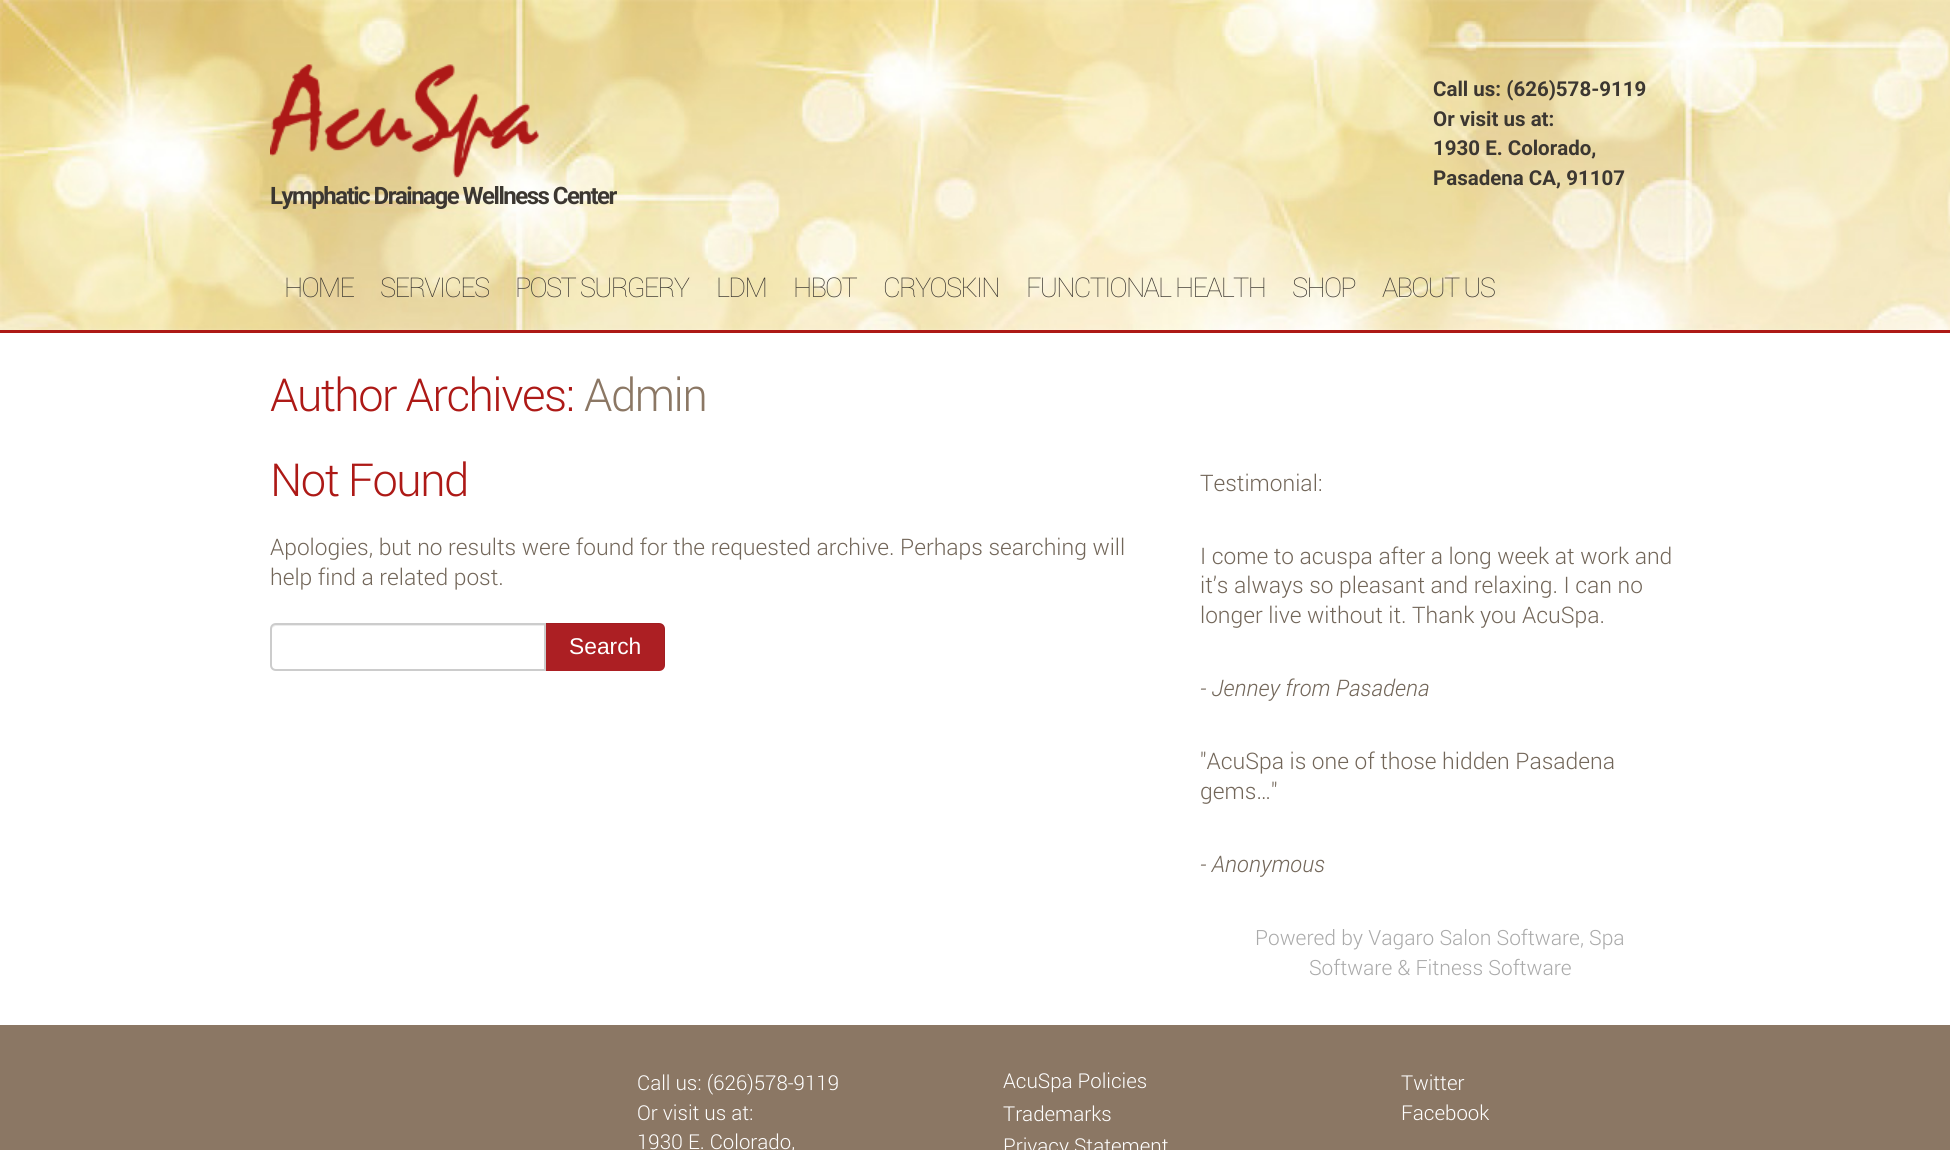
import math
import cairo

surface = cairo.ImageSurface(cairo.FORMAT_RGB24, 1950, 1150)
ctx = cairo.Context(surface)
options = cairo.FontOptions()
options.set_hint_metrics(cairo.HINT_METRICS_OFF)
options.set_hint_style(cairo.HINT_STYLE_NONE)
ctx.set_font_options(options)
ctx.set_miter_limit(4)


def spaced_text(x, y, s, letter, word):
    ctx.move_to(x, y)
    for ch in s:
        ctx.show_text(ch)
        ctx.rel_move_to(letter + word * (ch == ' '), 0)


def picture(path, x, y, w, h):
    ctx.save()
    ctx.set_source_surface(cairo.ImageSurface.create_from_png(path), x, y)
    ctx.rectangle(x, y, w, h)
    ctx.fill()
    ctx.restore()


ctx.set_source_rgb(1, 1, 1)
ctx.paint()
picture("img1.png", 0, 0, 1950, 330)
ctx.select_font_face("Roboto", cairo.FONT_SLANT_NORMAL, cairo.FONT_WEIGHT_BOLD)
ctx.set_font_size(20.5)
ctx.set_source_rgb(0.235, 0.216, 0.192)
ctx.move_to(1433, 96)
ctx.show_text("Call us: (626)578-9119")
ctx.move_to(1433, 126)
ctx.show_text("Or visit us at:")
ctx.move_to(1433, 155)
ctx.show_text("1930 E. Colorado,")
ctx.move_to(1433, 185)
ctx.show_text("Pasadena CA, 91107")
picture("img2.png", 270, 64, 269, 114)
ctx.set_font_size(24)
spaced_text(270, 204, "Lymphatic Drainage Wellness Center", -1.5, 0)
ctx.select_font_face("Roboto ExtraLight")
ctx.set_font_size(27.25)
spaced_text(284, 297, "HOME", -1.75, 0)
spaced_text(380, 297, "SERVICES", -1.75, 0)
spaced_text(515, 297, "POST SURGERY", -1.75, 0)
spaced_text(716, 297, "LDM", -1.75, 0)
spaced_text(793, 297, "HBOT", -1.75, 0)
spaced_text(883, 297, "CRYOSKIN", -1.75, 0)
spaced_text(1026, 297, "FUNCTIONAL HEALTH", -1.75, 0)
spaced_text(1292, 297, "SHOP", -1.75, 0)
spaced_text(1382, 297, "ABOUT US", -1.75, 0)
ctx.set_source_rgb(0.678, 0.098, 0.086)
ctx.rectangle(0, 330, 1950, 3)
ctx.fill()
ctx.select_font_face("Roboto Light")
ctx.set_font_size(45.5)
spaced_text(270, 411, "Author Archives:", -1.5, 0)
ctx.set_source_rgb(0.545, 0.467, 0.392)
spaced_text(584, 411, "Admin", -1.5, 0)
ctx.set_source_rgb(0.678, 0.098, 0.086)
spaced_text(270, 496, "Not Found", -1.5, 0)
ctx.set_font_size(22.8)
ctx.set_source_rgb(0.447, 0.4, 0.349)
ctx.move_to(270, 555)
ctx.show_text("Apologies, but no results were found for the requested archive. Perhaps searching will")
ctx.move_to(270, 585)
ctx.show_text("help find a related post.")
ctx.set_source_rgb(0.925, 0.925, 0.925)
ctx.new_path()
ctx.move_to(276, 626)
ctx.line_to(544, 626)
ctx.line_to(544, 669)
ctx.line_to(545, 669)
ctx.line_to(545, 624)
ctx.line_to(277, 624)
ctx.curve_to(274, 624, 272, 627, 272, 630)
ctx.curve_to(272, 628, 274, 626, 276, 626)
ctx.close_path()
ctx.fill()
ctx.new_path()
ctx.move_to(276, 624)
ctx.line_to(545, 624)
ctx.line_to(545, 670)
ctx.line_to(276, 670)
ctx.curve_to(273, 670, 271, 668, 271, 665)
ctx.line_to(271, 629)
ctx.curve_to(271, 626, 273, 624, 276, 624)
ctx.close_path()
ctx.set_source_rgb(0.8, 0.8, 0.8)
ctx.stroke()
ctx.set_source_rgb(0.675, 0.122, 0.137)
ctx.new_path()
ctx.move_to(546, 623)
ctx.line_to(659, 623)
ctx.curve_to(662.5, 623, 665, 625.5, 665, 629)
ctx.line_to(665, 665)
ctx.curve_to(665, 668.5, 662.5, 671, 659, 671)
ctx.line_to(546, 671)
ctx.close_path()
ctx.fill()
ctx.set_source_rgba(0, 0, 0, 0.07)
ctx.new_path()
ctx.move_to(546, 624)
ctx.line_to(658, 624)
ctx.curve_to(662, 624, 664, 627, 664, 630)
ctx.line_to(664, 666)
ctx.curve_to(664, 667, 664, 668, 663, 669)
ctx.curve_to(664, 668, 665, 667, 665, 665)
ctx.line_to(665, 629)
ctx.curve_to(665, 626, 662, 623, 659, 623)
ctx.line_to(546, 623)
ctx.close_path()
ctx.fill()
ctx.select_font_face("Liberation Sans")
ctx.set_source_rgb(1, 1, 1)
ctx.move_to(569, 654)
ctx.show_text("Search")
ctx.select_font_face("Roboto Light")
ctx.set_source_rgb(0.447, 0.4, 0.349)
ctx.move_to(1200, 491)
ctx.show_text("Testimonial:")
ctx.move_to(1200, 564)
ctx.show_text("I come to acuspa after a long week at work and")
ctx.move_to(1200, 593)
ctx.show_text("it’s always so pleasant and relaxing. I can no")
ctx.move_to(1200, 623)
ctx.show_text("longer live without it. Thank you AcuSpa.")
ctx.select_font_face("Roboto Light", cairo.FONT_SLANT_ITALIC)
ctx.move_to(1200, 696)
ctx.show_text("- Jenney from Pasadena")
ctx.select_font_face("Roboto Light")
ctx.move_to(1200, 769)
ctx.show_text("\"AcuSpa is one of those hidden Pasadena")
ctx.move_to(1200, 799)
ctx.show_text("gems…\"")
ctx.select_font_face("Roboto Light", cairo.FONT_SLANT_ITALIC)
ctx.move_to(1200, 872)
ctx.show_text("- Anonymous")
ctx.select_font_face("Roboto Light")
ctx.set_font_size(21)
ctx.set_source_rgb(0.667, 0.667, 0.667)
ctx.move_to(1255, 945)
ctx.show_text("Powered by Vagaro Salon Software, Spa")
ctx.move_to(1309, 975)
ctx.show_text("Software & Fitness Software")
ctx.set_source_rgb(0.545, 0.467, 0.392)
ctx.rectangle(0, 1025, 1950, 125)
ctx.fill()
ctx.set_font_size(20.5)
ctx.set_source_rgb(1, 1, 1)
ctx.move_to(637, 1090)
ctx.show_text("Call us: (626)578-9119")
ctx.move_to(637, 1120)
ctx.show_text("Or visit us at:")
ctx.move_to(637, 1149)
ctx.show_text("1930 E. Colorado,")
ctx.move_to(1003, 1088)
ctx.show_text("AcuSpa Policies")
ctx.move_to(1003, 1121)
ctx.show_text("Trademarks")
ctx.move_to(1003, 1153)
ctx.show_text("Privacy Statement")
ctx.move_to(1401, 1090)
ctx.show_text("Twitter")
ctx.move_to(1401, 1120)
ctx.show_text("Facebook")
surface.write_to_png("page.png")
